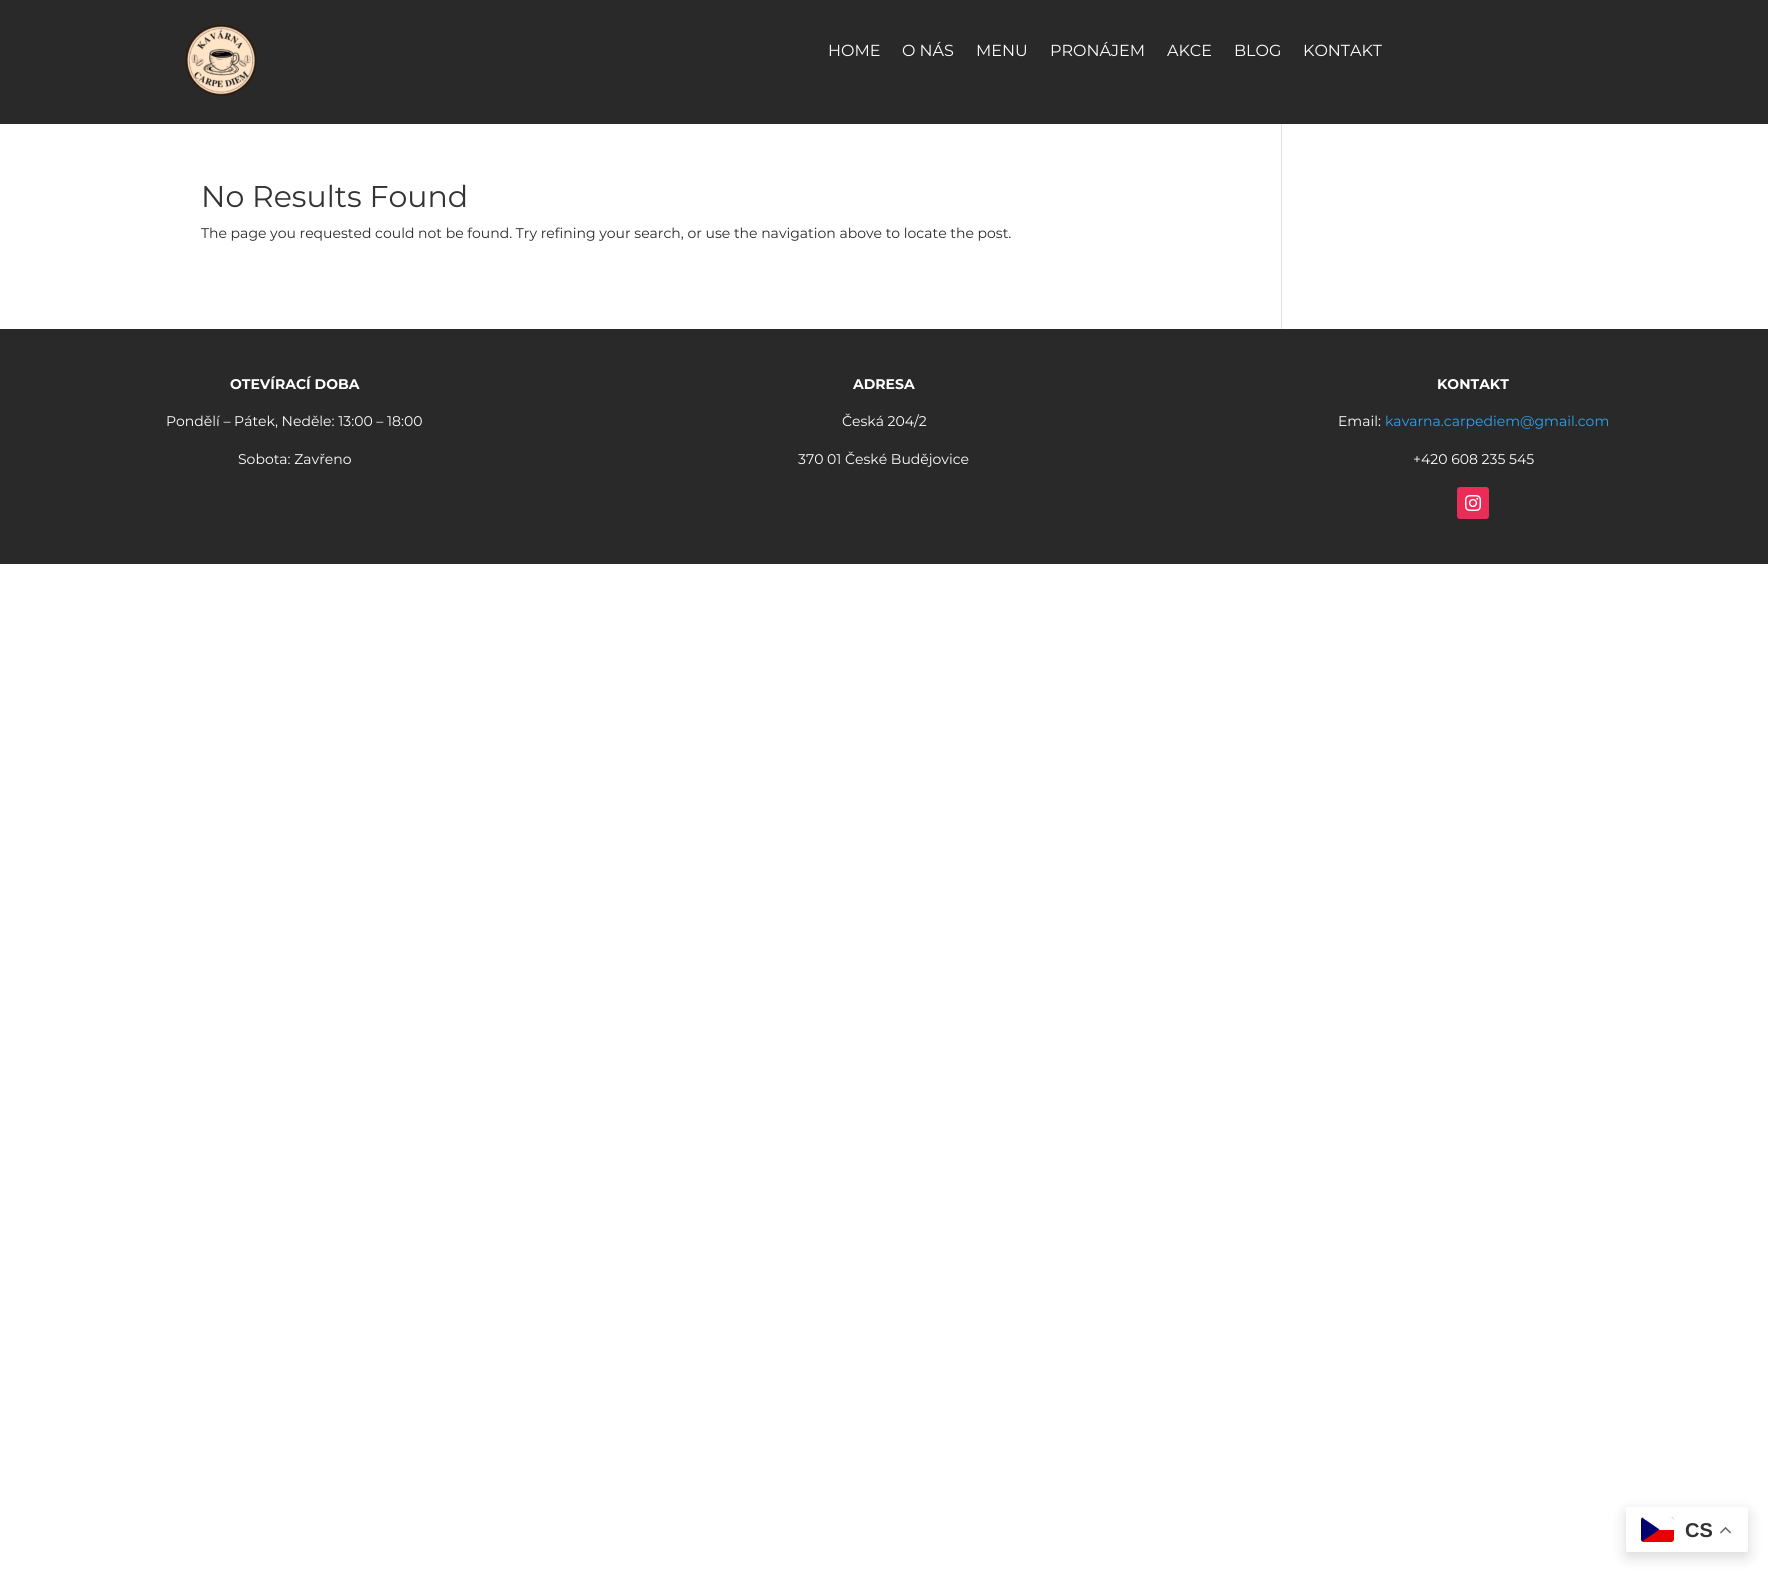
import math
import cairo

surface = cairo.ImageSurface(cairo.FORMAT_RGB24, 1768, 1580)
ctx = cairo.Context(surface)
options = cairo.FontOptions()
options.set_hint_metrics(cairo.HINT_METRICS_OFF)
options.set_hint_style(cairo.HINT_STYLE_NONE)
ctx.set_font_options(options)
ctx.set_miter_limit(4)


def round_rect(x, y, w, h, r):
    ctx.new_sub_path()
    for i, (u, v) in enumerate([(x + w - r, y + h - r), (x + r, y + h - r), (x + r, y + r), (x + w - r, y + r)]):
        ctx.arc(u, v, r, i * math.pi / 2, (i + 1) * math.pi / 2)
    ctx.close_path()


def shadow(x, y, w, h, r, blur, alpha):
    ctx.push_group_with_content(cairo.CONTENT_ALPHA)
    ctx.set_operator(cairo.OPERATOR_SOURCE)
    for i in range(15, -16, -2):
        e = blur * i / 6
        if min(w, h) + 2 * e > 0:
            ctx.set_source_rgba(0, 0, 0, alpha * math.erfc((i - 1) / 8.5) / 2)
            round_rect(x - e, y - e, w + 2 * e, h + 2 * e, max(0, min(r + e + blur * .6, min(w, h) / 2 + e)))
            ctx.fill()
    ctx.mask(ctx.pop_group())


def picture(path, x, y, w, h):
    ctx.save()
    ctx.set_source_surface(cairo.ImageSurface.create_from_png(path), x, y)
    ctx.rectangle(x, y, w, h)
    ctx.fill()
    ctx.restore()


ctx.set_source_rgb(1, 1, 1)
ctx.paint()
ctx.set_source_rgb(0.161, 0.161, 0.161)
ctx.rectangle(0, 0, 1768, 124)
ctx.fill()
picture("img1.png", 185, 24, 72, 72)
ctx.select_font_face("Montserrat")
ctx.set_font_size(16)
ctx.set_source_rgb(1, 1, 1)
ctx.move_to(828, 56)
ctx.show_text("HOME")
ctx.move_to(902, 56)
ctx.show_text("O NÁS")
ctx.move_to(976, 56)
ctx.show_text("MENU")
ctx.move_to(1050, 56)
ctx.show_text("PRONÁJEM")
ctx.move_to(1167, 56)
ctx.show_text("AKCE")
ctx.move_to(1234, 56)
ctx.show_text("BLOG")
ctx.move_to(1303, 56)
ctx.show_text("KONTAKT")
ctx.set_font_size(30)
ctx.set_source_rgb(0.2, 0.2, 0.2)
ctx.move_to(201, 207)
ctx.show_text("No Results Found")
ctx.set_font_size(14)
ctx.set_source_rgb(0.161, 0.161, 0.161)
ctx.move_to(201, 238)
ctx.show_text("The page you requested could not be found. Try refining your search, or use the navigation above to locate the post.")
ctx.set_source_rgb(0.886, 0.886, 0.886)
ctx.rectangle(1281, 124, 1, 205)
ctx.fill()
ctx.set_source_rgb(0.161, 0.161, 0.161)
ctx.rectangle(0, 329, 1768, 235)
ctx.fill()
ctx.select_font_face("Montserrat", cairo.FONT_SLANT_NORMAL, cairo.FONT_WEIGHT_BOLD)
ctx.set_source_rgb(1, 1, 1)
ctx.move_to(230, 389)
ctx.show_text("OTEVÍRACÍ DOBA")
ctx.select_font_face("Montserrat")
ctx.move_to(166, 426)
ctx.show_text("Pondělí – Pátek, Neděle: 13:00 – 18:00")
ctx.move_to(238, 464)
ctx.show_text("Sobota: Zavřeno")
ctx.select_font_face("Montserrat", cairo.FONT_SLANT_NORMAL, cairo.FONT_WEIGHT_BOLD)
ctx.move_to(853, 389)
ctx.show_text("ADRESA")
ctx.select_font_face("Montserrat")
ctx.move_to(842, 426)
ctx.show_text("Česká 204/2")
ctx.move_to(798, 464)
ctx.show_text("370 01 České Budějovice")
ctx.select_font_face("Montserrat", cairo.FONT_SLANT_NORMAL, cairo.FONT_WEIGHT_BOLD)
ctx.move_to(1437, 389)
ctx.show_text("KONTAKT")
ctx.select_font_face("Montserrat")
ctx.move_to(1338, 426)
ctx.show_text("Email:")
ctx.set_source_rgb(0.18, 0.639, 0.949)
ctx.move_to(1385, 426)
ctx.show_text("kavarna.carpediem@gmail.com")
ctx.set_source_rgb(1, 1, 1)
ctx.move_to(1413, 464)
ctx.show_text("+420 608 235 545")
ctx.set_source_rgb(0.918, 0.173, 0.349)
round_rect(1457, 487, 32, 32, 3)
ctx.fill()
picture("img2.png", 1465, 495, 16, 16)
ctx.set_source_rgb(0, 0, 0)
shadow(1626, 1512, 122, 45, 2, 7.5, 0.15)
ctx.set_source_rgb(1, 1, 1)
round_rect(1626, 1507, 122, 45, 2)
ctx.fill()
ctx.set_source_rgb(0.91, 0, 0)
ctx.new_path()
ctx.move_to(1644, 1517)
ctx.line_to(1671, 1517)
ctx.curve_to(1672.5, 1517, 1674, 1518.5, 1674, 1520)
ctx.line_to(1674, 1539)
ctx.curve_to(1674, 1540.5, 1673, 1541.5, 1672, 1542)
ctx.line_to(1643, 1542)
ctx.curve_to(1642, 1541.5, 1641, 1540.5, 1641, 1539)
ctx.line_to(1641, 1520)
ctx.curve_to(1641, 1518.5, 1642.5, 1517, 1644, 1517)
ctx.close_path()
ctx.fill()
ctx.set_source_rgb(1, 1, 1)
ctx.new_path()
ctx.move_to(1644, 1517)
ctx.curve_to(1642.5, 1517, 1641, 1518.5, 1641, 1520)
ctx.line_to(1641, 1530)
ctx.line_to(1674, 1530)
ctx.line_to(1674, 1520)
ctx.curve_to(1674, 1518.5, 1672.5, 1517, 1671, 1517)
ctx.close_path()
ctx.fill()
ctx.set_source_rgb(0, 0, 0.435)
ctx.new_path()
ctx.move_to(1642, 1517.5)
ctx.line_to(1659.5, 1529.5)
ctx.line_to(1642, 1541.5)
ctx.curve_to(1641.5, 1540.5, 1641, 1540, 1641, 1539)
ctx.line_to(1641, 1520)
ctx.curve_to(1641, 1519, 1641.5, 1518.5, 1642, 1517.5)
ctx.close_path()
ctx.fill()
ctx.select_font_face("Liberation Sans", cairo.FONT_SLANT_NORMAL, cairo.FONT_WEIGHT_BOLD)
ctx.set_font_size(20)
ctx.set_source_rgb(0.2, 0.2, 0.2)
ctx.move_to(1685, 1537)
ctx.show_text("CS")
picture("img3.png", 1720, 1527, 11, 7)
surface.write_to_png("page.png")
